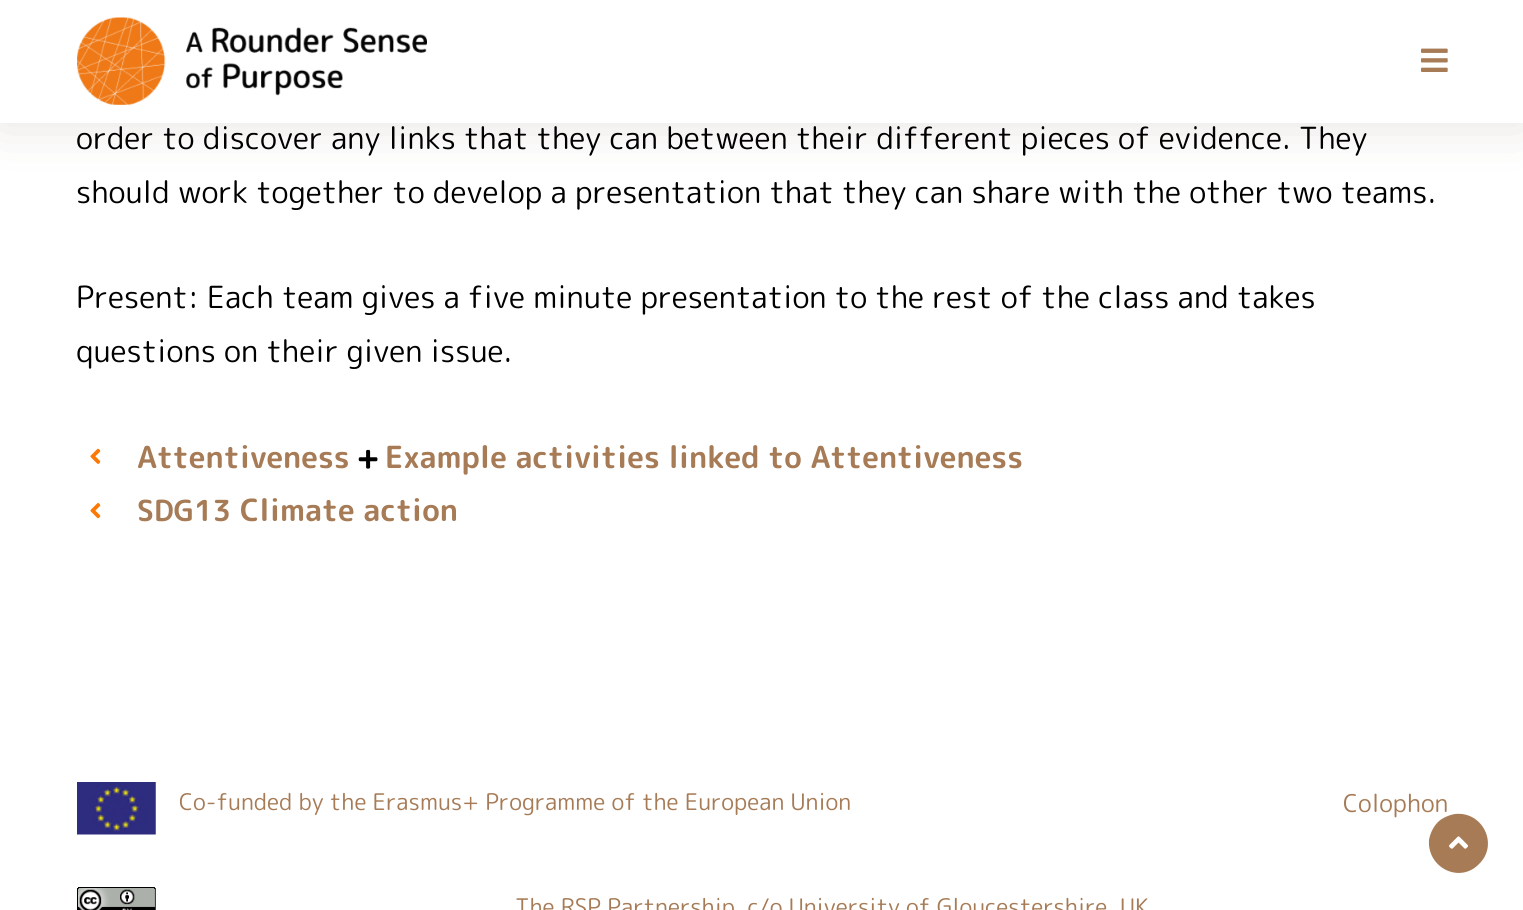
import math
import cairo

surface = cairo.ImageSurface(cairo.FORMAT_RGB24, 1523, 910)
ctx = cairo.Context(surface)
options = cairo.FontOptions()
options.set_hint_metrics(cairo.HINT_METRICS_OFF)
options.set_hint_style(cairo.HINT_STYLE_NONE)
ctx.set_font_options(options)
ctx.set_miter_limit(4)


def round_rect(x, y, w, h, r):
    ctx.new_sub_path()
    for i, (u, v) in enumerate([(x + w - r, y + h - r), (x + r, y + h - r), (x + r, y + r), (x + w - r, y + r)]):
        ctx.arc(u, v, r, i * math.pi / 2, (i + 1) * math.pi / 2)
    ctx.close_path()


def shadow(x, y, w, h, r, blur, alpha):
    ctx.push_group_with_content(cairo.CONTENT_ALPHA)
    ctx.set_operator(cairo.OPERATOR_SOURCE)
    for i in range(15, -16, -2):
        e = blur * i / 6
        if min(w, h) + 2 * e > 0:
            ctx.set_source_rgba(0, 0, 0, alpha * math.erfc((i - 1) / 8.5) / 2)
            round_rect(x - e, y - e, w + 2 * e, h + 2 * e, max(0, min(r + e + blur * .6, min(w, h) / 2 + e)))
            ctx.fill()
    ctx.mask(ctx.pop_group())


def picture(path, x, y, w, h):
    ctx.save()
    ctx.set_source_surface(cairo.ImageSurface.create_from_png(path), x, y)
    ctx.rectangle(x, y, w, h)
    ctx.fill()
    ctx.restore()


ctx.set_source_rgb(1, 1, 1)
ctx.paint()
ctx.set_source_rgb(0.329, 0.247, 0.161)
shadow(0, 0, 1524, 123, 0, 26, 0.15)
ctx.set_source_rgb(1, 1, 1)
ctx.rectangle(0, 0, 1523, 123)
ctx.fill()
picture("img1.png", 77, 17, 350, 88)
picture("img2.png", 1421, 48, 27, 24)
ctx.select_font_face("Rounded Mplus 1c")
ctx.set_font_size(30.5)
ctx.set_source_rgb(0, 0, 0)
ctx.move_to(76, 149)
ctx.show_text("order to discover any links that they can between their different pieces of evidence. They")
ctx.move_to(76, 203)
ctx.show_text("should work together to develop a presentation that they can share with the other two teams.")
ctx.move_to(76, 308)
ctx.show_text("Present: Each team gives a five minute presentation to the rest of the class and takes")
ctx.move_to(76, 362)
ctx.show_text("questions on their given issue.")
picture("img3.png", 90, 448, 11, 16)
ctx.select_font_face("Rounded Mplus 1c Bold", cairo.FONT_SLANT_NORMAL, cairo.FONT_WEIGHT_BOLD)
ctx.set_source_rgb(0.651, 0.482, 0.337)
ctx.move_to(137, 468)
ctx.show_text("Attentiveness")
picture("img4.png", 358, 449, 20, 20)
ctx.move_to(385, 468)
ctx.show_text("Example activities linked to Attentiveness")
picture("img5.png", 90, 503, 11, 16)
ctx.set_font_size(29)
ctx.move_to(137, 521)
ctx.show_text("SDG13")
ctx.set_font_size(30.5)
ctx.move_to(240, 521)
ctx.show_text("Climate action")
picture("img6.png", 77, 782, 79, 53)
ctx.select_font_face("Rounded Mplus 1c")
ctx.set_font_size(22.9)
ctx.move_to(179, 810)
ctx.show_text("Co-funded by the Erasmus+ Programme of the European Union")
picture("img7.png", 77, 887, 79, 23)
ctx.move_to(515, 915)
ctx.show_text("The RSP Partnership, c/o University of Gloucestershire, UK")
ctx.set_font_size(24.5)
ctx.move_to(1343, 812)
ctx.show_text("Colophon")
ctx.new_path()
ctx.move_to(1438, 822)
ctx.curve_to(1442, 818, 1449, 815, 1455, 814)
ctx.curve_to(1483, 811, 1499, 845, 1479, 864)
ctx.curve_to(1460, 884, 1427, 868, 1429, 840)
ctx.curve_to(1430, 834, 1433, 827, 1438, 822)
ctx.close_path()
ctx.fill()
picture("img8.png", 1449, 836, 19, 13)
surface.write_to_png("page.png")
